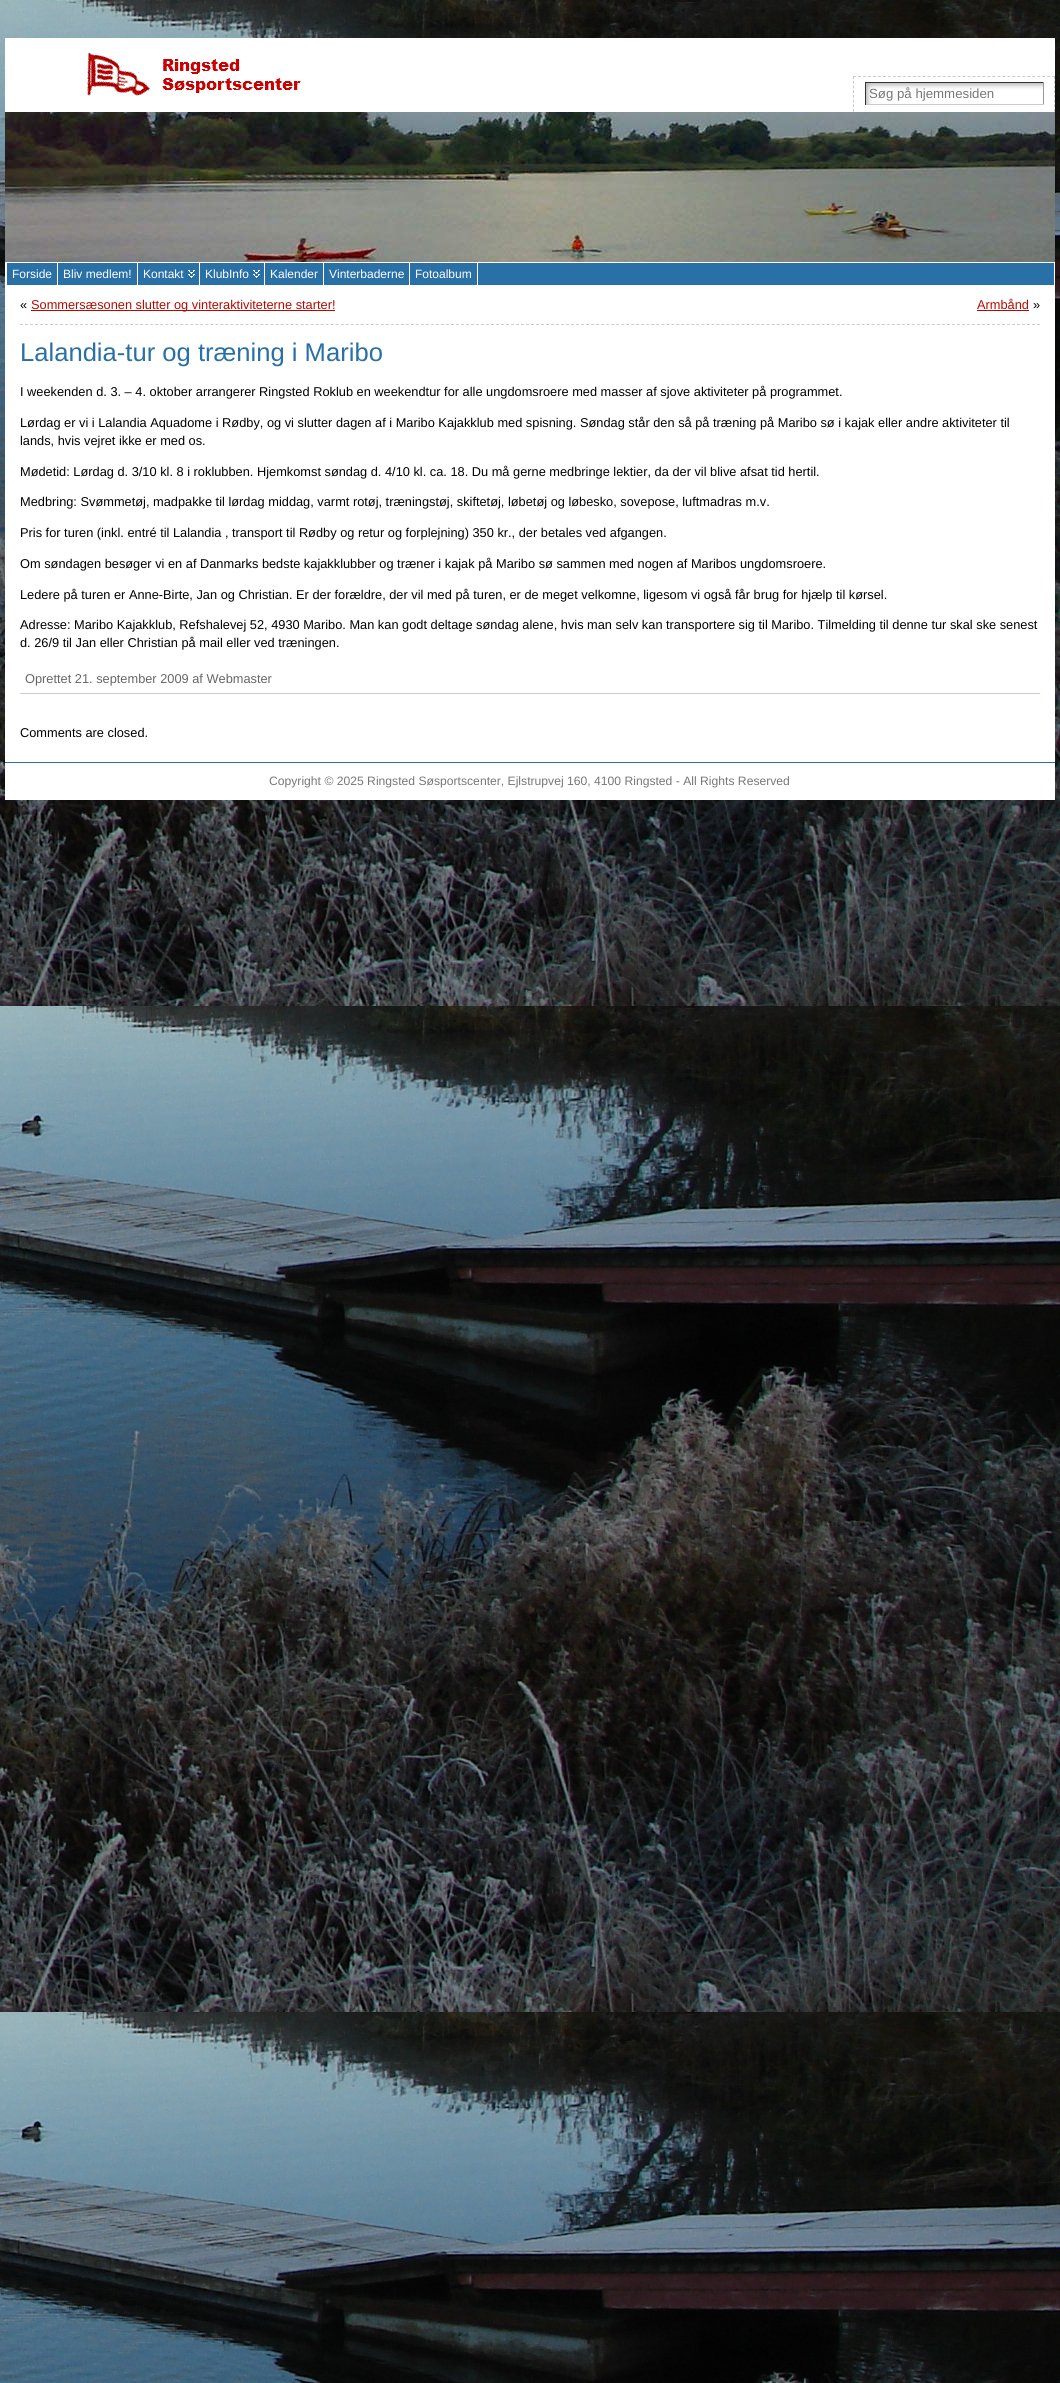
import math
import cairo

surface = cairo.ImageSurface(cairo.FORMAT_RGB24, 1060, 2383)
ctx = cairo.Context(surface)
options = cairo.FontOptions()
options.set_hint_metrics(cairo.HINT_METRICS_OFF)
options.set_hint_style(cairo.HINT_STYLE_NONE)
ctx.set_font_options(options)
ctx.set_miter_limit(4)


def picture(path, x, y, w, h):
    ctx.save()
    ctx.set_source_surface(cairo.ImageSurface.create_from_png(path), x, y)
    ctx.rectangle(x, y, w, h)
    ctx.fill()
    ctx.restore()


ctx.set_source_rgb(1, 1, 1)
ctx.paint()
picture("img1.png", 0, 0, 1060, 2383)
ctx.select_font_face("Liberation Sans")
ctx.set_font_size(12.8)
ctx.set_source_rgb(0, 0, 0)
ctx.move_to(528, 33)
ctx.show_text(".")
ctx.set_source_rgb(1, 1, 1)
ctx.rectangle(5, 38, 1050, 74)
ctx.fill()
picture("img2.png", 87, 53, 214, 43)
ctx.new_path()
ctx.move_to(853, 76.5)
ctx.line_to(1055, 76.5)
ctx.set_source_rgb(0.8, 0.8, 0.8)
ctx.set_line_width(1)
ctx.set_dash([3, 1.98])
ctx.stroke()
ctx.new_path()
ctx.move_to(1054.5, 76)
ctx.line_to(1054.5, 112)
ctx.set_dash([3, 1.71])
ctx.stroke()
ctx.new_path()
ctx.move_to(853.5, 76)
ctx.line_to(853.5, 112)
ctx.stroke()
picture("img3.png", 866, 83, 177, 21)
ctx.set_source_rgb(0.2, 0.2, 0.2)
ctx.rectangle(865, 82, 179, 1)
ctx.fill()
ctx.set_source_rgb(0.6, 0.6, 0.6)
ctx.rectangle(1043, 82, 1, 23)
ctx.fill()
ctx.set_source_rgb(0.8, 0.8, 0.8)
ctx.rectangle(865, 104, 179, 1)
ctx.fill()
ctx.set_source_rgb(0.2, 0.2, 0.2)
ctx.rectangle(865, 82, 1, 23)
ctx.fill()
ctx.set_font_size(13.25)
ctx.set_source_rgb(0.467, 0.467, 0.467)
ctx.move_to(869, 98)
ctx.show_text("Søg på hjemmesiden")
picture("img4.png", 5, 112, 1050, 150)
ctx.set_source_rgb(0.161, 0.439, 0.651)
ctx.rectangle(478, 263, 576, 22)
ctx.fill()
ctx.rectangle(5.5, 262.5, 1049, 23)
ctx.set_source_rgb(1, 1, 1)
ctx.set_dash([])
ctx.stroke()
ctx.set_source_rgb(0.161, 0.439, 0.651)
ctx.rectangle(6.5, 262.5, 51, 23)
ctx.fill_preserve()
ctx.set_source_rgb(1, 1, 1)
ctx.stroke()
ctx.set_font_size(12)
ctx.move_to(12, 278)
ctx.show_text("Forside")
ctx.set_source_rgb(0.161, 0.439, 0.651)
ctx.rectangle(57.5, 262.5, 80, 23)
ctx.fill_preserve()
ctx.set_source_rgb(1, 1, 1)
ctx.stroke()
ctx.move_to(63, 278)
ctx.show_text("Bliv medlem!")
ctx.set_source_rgb(0.161, 0.439, 0.651)
ctx.rectangle(138, 263, 61, 22)
ctx.fill()
picture("img5.png", 188, 270, 7, 8)
ctx.rectangle(137.5, 262.5, 62, 23)
ctx.set_source_rgb(1, 1, 1)
ctx.stroke()
ctx.move_to(143, 278)
ctx.show_text("Kontakt")
ctx.set_source_rgb(0.161, 0.439, 0.651)
ctx.rectangle(200, 263, 64, 22)
ctx.fill()
picture("img5.png", 253, 270, 7, 8)
ctx.rectangle(199.5, 262.5, 65, 23)
ctx.set_source_rgb(1, 1, 1)
ctx.stroke()
ctx.move_to(205, 278)
ctx.show_text("KlubInfo")
ctx.set_source_rgb(0.161, 0.439, 0.651)
ctx.rectangle(264.5, 262.5, 59, 23)
ctx.fill_preserve()
ctx.set_source_rgb(1, 1, 1)
ctx.stroke()
ctx.move_to(270, 278)
ctx.show_text("Kalender")
ctx.set_source_rgb(0.161, 0.439, 0.651)
ctx.rectangle(323.5, 262.5, 86, 23)
ctx.fill_preserve()
ctx.set_source_rgb(1, 1, 1)
ctx.stroke()
ctx.move_to(329, 278)
ctx.show_text("Vinterbaderne")
ctx.set_source_rgb(0.161, 0.439, 0.651)
ctx.rectangle(409.5, 262.5, 68, 23)
ctx.fill_preserve()
ctx.set_source_rgb(1, 1, 1)
ctx.stroke()
ctx.move_to(415, 278)
ctx.show_text("Fotoalbum")
ctx.rectangle(5, 286, 1050, 476)
ctx.fill()
ctx.new_path()
ctx.move_to(20, 324.5)
ctx.line_to(1040, 324.5)
ctx.set_source_rgb(0.8, 0.8, 0.8)
ctx.set_dash([3, 2.01])
ctx.stroke()
ctx.set_font_size(12.8)
ctx.set_source_rgb(0, 0, 0)
ctx.move_to(20, 309)
ctx.show_text("«")
ctx.set_source_rgb(0.714, 0.039, 0)
ctx.rectangle(31, 310, 304, 1)
ctx.fill()
ctx.move_to(31, 309)
ctx.show_text("Sommersæsonen slutter og vinteraktiviteterne starter!")
ctx.move_to(977, 309)
ctx.show_text("Armbånd")
ctx.rectangle(977, 310, 52, 1)
ctx.fill()
ctx.set_source_rgb(0, 0, 0)
ctx.move_to(1033, 309)
ctx.show_text("»")
ctx.set_font_size(25.6)
ctx.set_source_rgb(0.161, 0.439, 0.651)
ctx.move_to(20, 361)
ctx.show_text("Lalandia-tur og træning i Maribo")
ctx.set_font_size(12.8)
ctx.set_source_rgb(0, 0, 0)
ctx.move_to(20, 396)
ctx.show_text("I weekenden d. 3. – 4. oktober arrangerer Ringsted Roklub en weekendtur for alle ungdomsroere med masser af sjove aktiviteter på programmet.")
ctx.move_to(20, 427)
ctx.show_text("Lørdag er vi i Lalandia Aquadome i Rødby, og vi slutter dagen af i Maribo Kajakklub med spisning. Søndag står den så på træning på Maribo sø i kajak eller andre aktiviteter til")
ctx.move_to(20, 445)
ctx.show_text("lands, hvis vejret ikke er med os.")
ctx.move_to(20, 476)
ctx.show_text("Mødetid: Lørdag d. 3/10 kl. 8 i roklubben. Hjemkomst søndag d. 4/10 kl. ca. 18. Du må gerne medbringe lektier, da der vil blive afsat tid hertil.")
ctx.move_to(20, 506)
ctx.show_text("Medbring: Svømmetøj, madpakke til lørdag middag, varmt rotøj, træningstøj, skiftetøj, løbetøj og løbesko, sovepose, luftmadras m.v.")
ctx.move_to(20, 537)
ctx.show_text("Pris for turen (inkl. entré til Lalandia , transport til Rødby og retur og forplejning) 350 kr., der betales ved afgangen.")
ctx.move_to(20, 568)
ctx.show_text("Om søndagen besøger vi en af Danmarks bedste kajakklubber og træner i kajak på Maribo sø sammen med nogen af Maribos ungdomsroere.")
ctx.move_to(20, 599)
ctx.show_text("Ledere på turen er Anne-Birte, Jan og Christian. Er der forældre, der vil med på turen, er de meget velkomne, ligesom vi også får brug for hjælp til kørsel.")
ctx.move_to(20, 629)
ctx.show_text("Adresse: Maribo Kajakklub, Refshalevej 52, 4930 Maribo. Man kan godt deltage søndag alene, hvis man selv kan transportere sig til Maribo. Tilmelding til denne tur skal ske senest")
ctx.move_to(20, 647)
ctx.show_text("d. 26/9 til Jan eller Christian på mail eller ved træningen.")
ctx.set_source_rgb(0.8, 0.8, 0.8)
ctx.rectangle(20, 693, 1020, 1)
ctx.fill()
ctx.set_source_rgb(0.4, 0.4, 0.4)
ctx.move_to(25, 683)
ctx.show_text("Oprettet 21. september 2009 af Webmaster")
ctx.set_source_rgb(0, 0, 0)
ctx.move_to(20, 737)
ctx.show_text("Comments are closed.")
ctx.set_source_rgb(1, 1, 1)
ctx.rectangle(5, 763, 1050, 37)
ctx.fill()
ctx.set_source_rgb(0.161, 0.439, 0.651)
ctx.rectangle(5, 762, 1050, 1)
ctx.fill()
ctx.set_font_size(12.15)
ctx.set_source_rgb(0.467, 0.467, 0.467)
ctx.move_to(269, 785)
ctx.show_text("Copyright © 2025 Ringsted Søsportscenter, Ejlstrupvej 160, 4100 Ringsted - All Rights Reserved")
surface.write_to_png("page.png")
